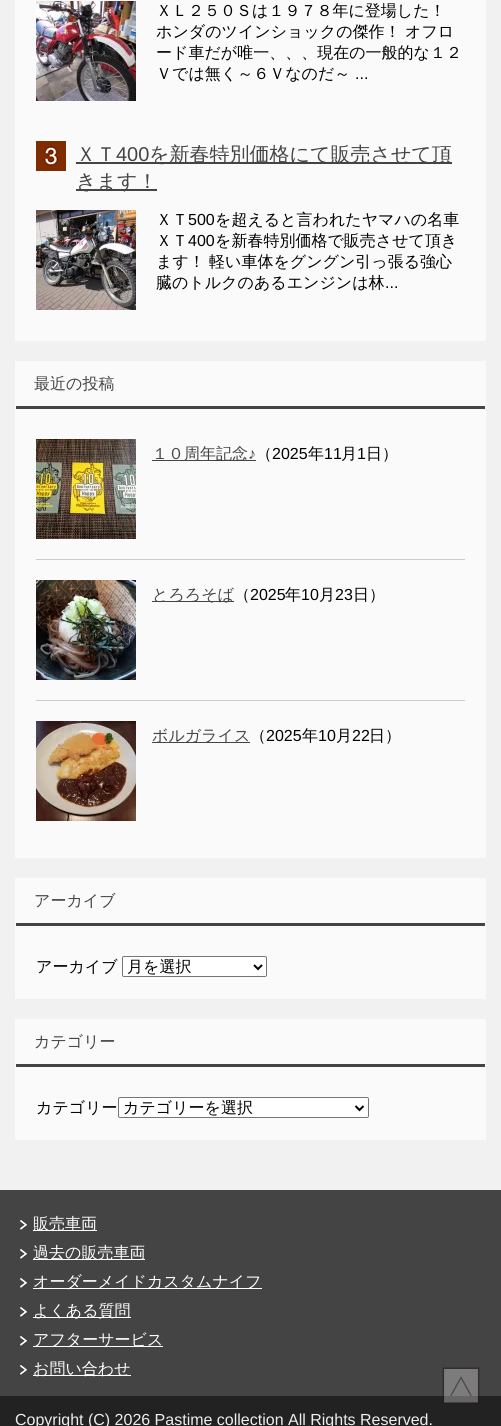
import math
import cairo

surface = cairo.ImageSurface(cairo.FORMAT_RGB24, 501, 1426)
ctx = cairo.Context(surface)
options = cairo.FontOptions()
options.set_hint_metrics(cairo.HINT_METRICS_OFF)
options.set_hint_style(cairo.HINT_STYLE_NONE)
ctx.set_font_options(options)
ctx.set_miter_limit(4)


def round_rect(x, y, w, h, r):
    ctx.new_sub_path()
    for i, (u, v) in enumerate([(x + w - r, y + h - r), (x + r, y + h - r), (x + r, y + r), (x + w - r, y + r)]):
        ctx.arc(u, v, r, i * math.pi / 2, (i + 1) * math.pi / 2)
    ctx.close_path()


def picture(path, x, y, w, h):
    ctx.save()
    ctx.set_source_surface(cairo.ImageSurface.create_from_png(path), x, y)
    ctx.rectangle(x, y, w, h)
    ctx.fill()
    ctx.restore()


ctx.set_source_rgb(0.945, 0.945, 0.945)
ctx.paint()
ctx.set_source_rgb(0.98, 0.98, 0.98)
ctx.rectangle(15, 0, 471, 341)
ctx.fill()
picture("img1.png", 36, 1, 100, 100)
ctx.select_font_face("WenQuanYi Zen Hei Medium")
ctx.set_font_size(16)
ctx.set_source_rgb(0, 0, 0)
ctx.move_to(156, 16)
ctx.show_text("ＸＬ２５０Ｓは１９７８年に登場した！")
ctx.move_to(156, 37)
ctx.show_text("ホンダのツインショックの傑作！")
ctx.move_to(405, 37)
ctx.show_text("オフロ")
ctx.move_to(156, 58)
ctx.show_text("ード車だが唯一、、、現在の一般的な１２")
ctx.move_to(156, 79)
ctx.show_text("Ｖでは無く～６Ｖなのだ～")
ctx.select_font_face("Liberation Sans")
ctx.move_to(355, 79)
ctx.show_text("...")
picture("img2.png", 36, 141, 30, 30)
ctx.select_font_face("WenQuanYi Zen Hei Medium")
ctx.set_font_size(20)
ctx.set_source_rgb(0.267, 0.267, 0.267)
ctx.move_to(76, 161)
ctx.show_text("ＸＴ")
ctx.select_font_face("Liberation Sans")
ctx.move_to(116, 161)
ctx.show_text("400")
ctx.rectangle(76, 162, 376, 2)
ctx.fill()
ctx.select_font_face("WenQuanYi Zen Hei Medium")
ctx.move_to(149, 161)
ctx.show_text("を新春特別価格にて販売させて頂")
ctx.rectangle(76, 189, 81, 2)
ctx.fill()
ctx.move_to(76, 188)
ctx.show_text("きます！")
picture("img3.png", 36, 210, 100, 100)
ctx.set_font_size(16)
ctx.set_source_rgb(0, 0, 0)
ctx.move_to(156, 225)
ctx.show_text("ＸＴ")
ctx.select_font_face("Liberation Sans")
ctx.move_to(188, 225)
ctx.show_text("500")
ctx.select_font_face("WenQuanYi Zen Hei Medium")
ctx.move_to(215, 225)
ctx.show_text("を超えると言われたヤマハの名車")
ctx.move_to(156, 246)
ctx.show_text("ＸＴ")
ctx.select_font_face("Liberation Sans")
ctx.move_to(188, 246)
ctx.show_text("400")
ctx.select_font_face("WenQuanYi Zen Hei Medium")
ctx.move_to(215, 246)
ctx.show_text("を新春特別価格で販売させて頂き")
ctx.move_to(156, 267)
ctx.show_text("ます！")
ctx.move_to(209, 267)
ctx.show_text("軽い車体をグングン引っ張る強心")
ctx.move_to(156, 288)
ctx.show_text("臓のトルクのあるエンジンは林")
ctx.select_font_face("Liberation Sans")
ctx.move_to(385, 288)
ctx.show_text("...")
ctx.set_source_rgb(0.98, 0.98, 0.98)
ctx.rectangle(15, 361, 471, 497)
ctx.fill()
ctx.set_source_rgb(0.267, 0.267, 0.267)
ctx.rectangle(16, 406, 469, 3)
ctx.fill()
ctx.select_font_face("WenQuanYi Zen Hei Medium")
ctx.move_to(34, 389)
ctx.show_text("最近の投稿")
ctx.set_source_rgb(0.8, 0.8, 0.8)
ctx.rectangle(36, 559, 429, 1)
ctx.fill()
picture("img4.png", 36, 439, 100, 100)
ctx.set_source_rgb(0.267, 0.267, 0.267)
ctx.rectangle(152, 460, 104, 1)
ctx.fill()
ctx.move_to(152, 459)
ctx.show_text("１０周年記念")
ctx.select_font_face("Liberation Sans")
ctx.move_to(248, 459)
ctx.show_text("♪")
ctx.select_font_face("WenQuanYi Zen Hei Medium")
ctx.set_source_rgb(0, 0, 0)
ctx.move_to(256, 459)
ctx.show_text("（")
ctx.select_font_face("Liberation Sans")
ctx.move_to(272, 459)
ctx.show_text("2025")
ctx.select_font_face("WenQuanYi Zen Hei Medium")
ctx.move_to(308, 459)
ctx.show_text("年")
ctx.select_font_face("Liberation Sans")
ctx.move_to(324, 459)
ctx.show_text("11")
ctx.select_font_face("WenQuanYi Zen Hei Medium")
ctx.move_to(341, 459)
ctx.show_text("月")
ctx.select_font_face("Liberation Sans")
ctx.move_to(357, 459)
ctx.show_text("1")
ctx.select_font_face("WenQuanYi Zen Hei Medium")
ctx.move_to(366, 459)
ctx.show_text("日）")
ctx.set_source_rgb(0.8, 0.8, 0.8)
ctx.rectangle(36, 700, 429, 1)
ctx.fill()
picture("img5.png", 36, 580, 100, 100)
ctx.set_source_rgb(0.267, 0.267, 0.267)
ctx.rectangle(152, 601, 82, 1)
ctx.fill()
ctx.move_to(152, 600)
ctx.show_text("とろろそば")
ctx.set_source_rgb(0, 0, 0)
ctx.move_to(234, 600)
ctx.show_text("（")
ctx.select_font_face("Liberation Sans")
ctx.move_to(250, 600)
ctx.show_text("2025")
ctx.select_font_face("WenQuanYi Zen Hei Medium")
ctx.move_to(285, 600)
ctx.show_text("年")
ctx.select_font_face("Liberation Sans")
ctx.move_to(301, 600)
ctx.show_text("10")
ctx.select_font_face("WenQuanYi Zen Hei Medium")
ctx.move_to(319, 600)
ctx.show_text("月")
ctx.select_font_face("Liberation Sans")
ctx.move_to(335, 600)
ctx.show_text("23")
ctx.select_font_face("WenQuanYi Zen Hei Medium")
ctx.move_to(353, 600)
ctx.show_text("日）")
picture("img6.png", 36, 721, 100, 100)
ctx.set_source_rgb(0.267, 0.267, 0.267)
ctx.rectangle(152, 742, 98, 1)
ctx.fill()
ctx.move_to(152, 741)
ctx.show_text("ボルガライス")
ctx.set_source_rgb(0, 0, 0)
ctx.move_to(250, 741)
ctx.show_text("（")
ctx.select_font_face("Liberation Sans")
ctx.move_to(266, 741)
ctx.show_text("2025")
ctx.select_font_face("WenQuanYi Zen Hei Medium")
ctx.move_to(302, 741)
ctx.show_text("年")
ctx.select_font_face("Liberation Sans")
ctx.move_to(318, 741)
ctx.show_text("10")
ctx.select_font_face("WenQuanYi Zen Hei Medium")
ctx.move_to(336, 741)
ctx.show_text("月")
ctx.select_font_face("Liberation Sans")
ctx.move_to(352, 741)
ctx.show_text("22")
ctx.select_font_face("WenQuanYi Zen Hei Medium")
ctx.move_to(369, 741)
ctx.show_text("日）")
ctx.set_source_rgb(0.98, 0.98, 0.98)
ctx.rectangle(15, 878, 471, 121)
ctx.fill()
ctx.set_source_rgb(0.267, 0.267, 0.267)
ctx.rectangle(16, 923, 469, 3)
ctx.fill()
ctx.move_to(34, 906)
ctx.show_text("アーカイブ")
ctx.set_source_rgb(0, 0, 0)
ctx.move_to(36, 972)
ctx.show_text("アーカイブ")
ctx.set_source_rgb(1, 1, 1)
round_rect(122.5, 956.5, 144, 20, 1.5)
ctx.fill_preserve()
ctx.set_source_rgb(0.463, 0.463, 0.463)
ctx.set_line_width(1)
ctx.stroke()
ctx.new_path()
ctx.move_to(254, 965)
ctx.line_to(258, 969)
ctx.line_to(262, 965)
ctx.set_source_rgb(0, 0, 0)
ctx.set_line_width(2)
ctx.stroke()
ctx.move_to(127, 972)
ctx.show_text("月を選択")
ctx.set_source_rgb(0.98, 0.98, 0.98)
ctx.rectangle(15, 1019, 471, 121)
ctx.fill()
ctx.set_source_rgb(0.267, 0.267, 0.267)
ctx.rectangle(16, 1064, 469, 3)
ctx.fill()
ctx.move_to(34, 1047)
ctx.show_text("カテゴリー")
ctx.set_source_rgb(0, 0, 0)
ctx.move_to(36, 1113)
ctx.show_text("カテゴリー")
ctx.set_source_rgb(1, 1, 1)
round_rect(118.5, 1097.5, 250, 20, 1.5)
ctx.fill_preserve()
ctx.set_source_rgb(0.463, 0.463, 0.463)
ctx.set_line_width(1)
ctx.stroke()
ctx.new_path()
ctx.move_to(355.5, 1106)
ctx.line_to(359.5, 1110)
ctx.line_to(363.5, 1106)
ctx.set_source_rgb(0, 0, 0)
ctx.set_line_width(2)
ctx.stroke()
ctx.move_to(123, 1113)
ctx.show_text("カテゴリーを選択")
ctx.set_source_rgb(0.267, 0.267, 0.267)
ctx.rectangle(0, 1190, 501, 206)
ctx.fill()
picture("img7.png", 20, 1220, 7, 10)
ctx.set_source_rgb(1, 1, 1)
ctx.rectangle(33, 1230, 64, 1)
ctx.fill()
ctx.move_to(33, 1229)
ctx.show_text("販売車両")
picture("img7.png", 20, 1249, 7, 10)
ctx.rectangle(33, 1259, 112, 1)
ctx.fill()
ctx.move_to(33, 1258)
ctx.show_text("過去の販売車両")
picture("img7.png", 20, 1278, 7, 10)
ctx.rectangle(33, 1288, 229, 1)
ctx.fill()
ctx.move_to(33, 1287)
ctx.show_text("オーダーメイドカスタムナイフ")
picture("img7.png", 20, 1307, 7, 10)
ctx.rectangle(33, 1317, 98, 1)
ctx.fill()
ctx.move_to(33, 1316)
ctx.show_text("よくある質問")
picture("img7.png", 20, 1336, 7, 10)
ctx.rectangle(33, 1346, 130, 1)
ctx.fill()
ctx.move_to(33, 1345)
ctx.show_text("アフターサービス")
picture("img7.png", 20, 1365, 7, 10)
ctx.rectangle(33, 1375, 98, 1)
ctx.fill()
ctx.move_to(33, 1374)
ctx.show_text("お問い合わせ")
ctx.set_source_rgb(0.133, 0.133, 0.133)
ctx.rectangle(0, 1396, 501, 30)
ctx.fill()
ctx.select_font_face("Liberation Sans")
ctx.set_source_rgb(0.933, 0.933, 0.933)
ctx.move_to(15, 1425)
ctx.show_text("Copyright (C) 2026 Pastime collection All Rights Reserved.")
picture("img8.png", 442, 1367, 38, 37)
surface.write_to_png("page.png")
